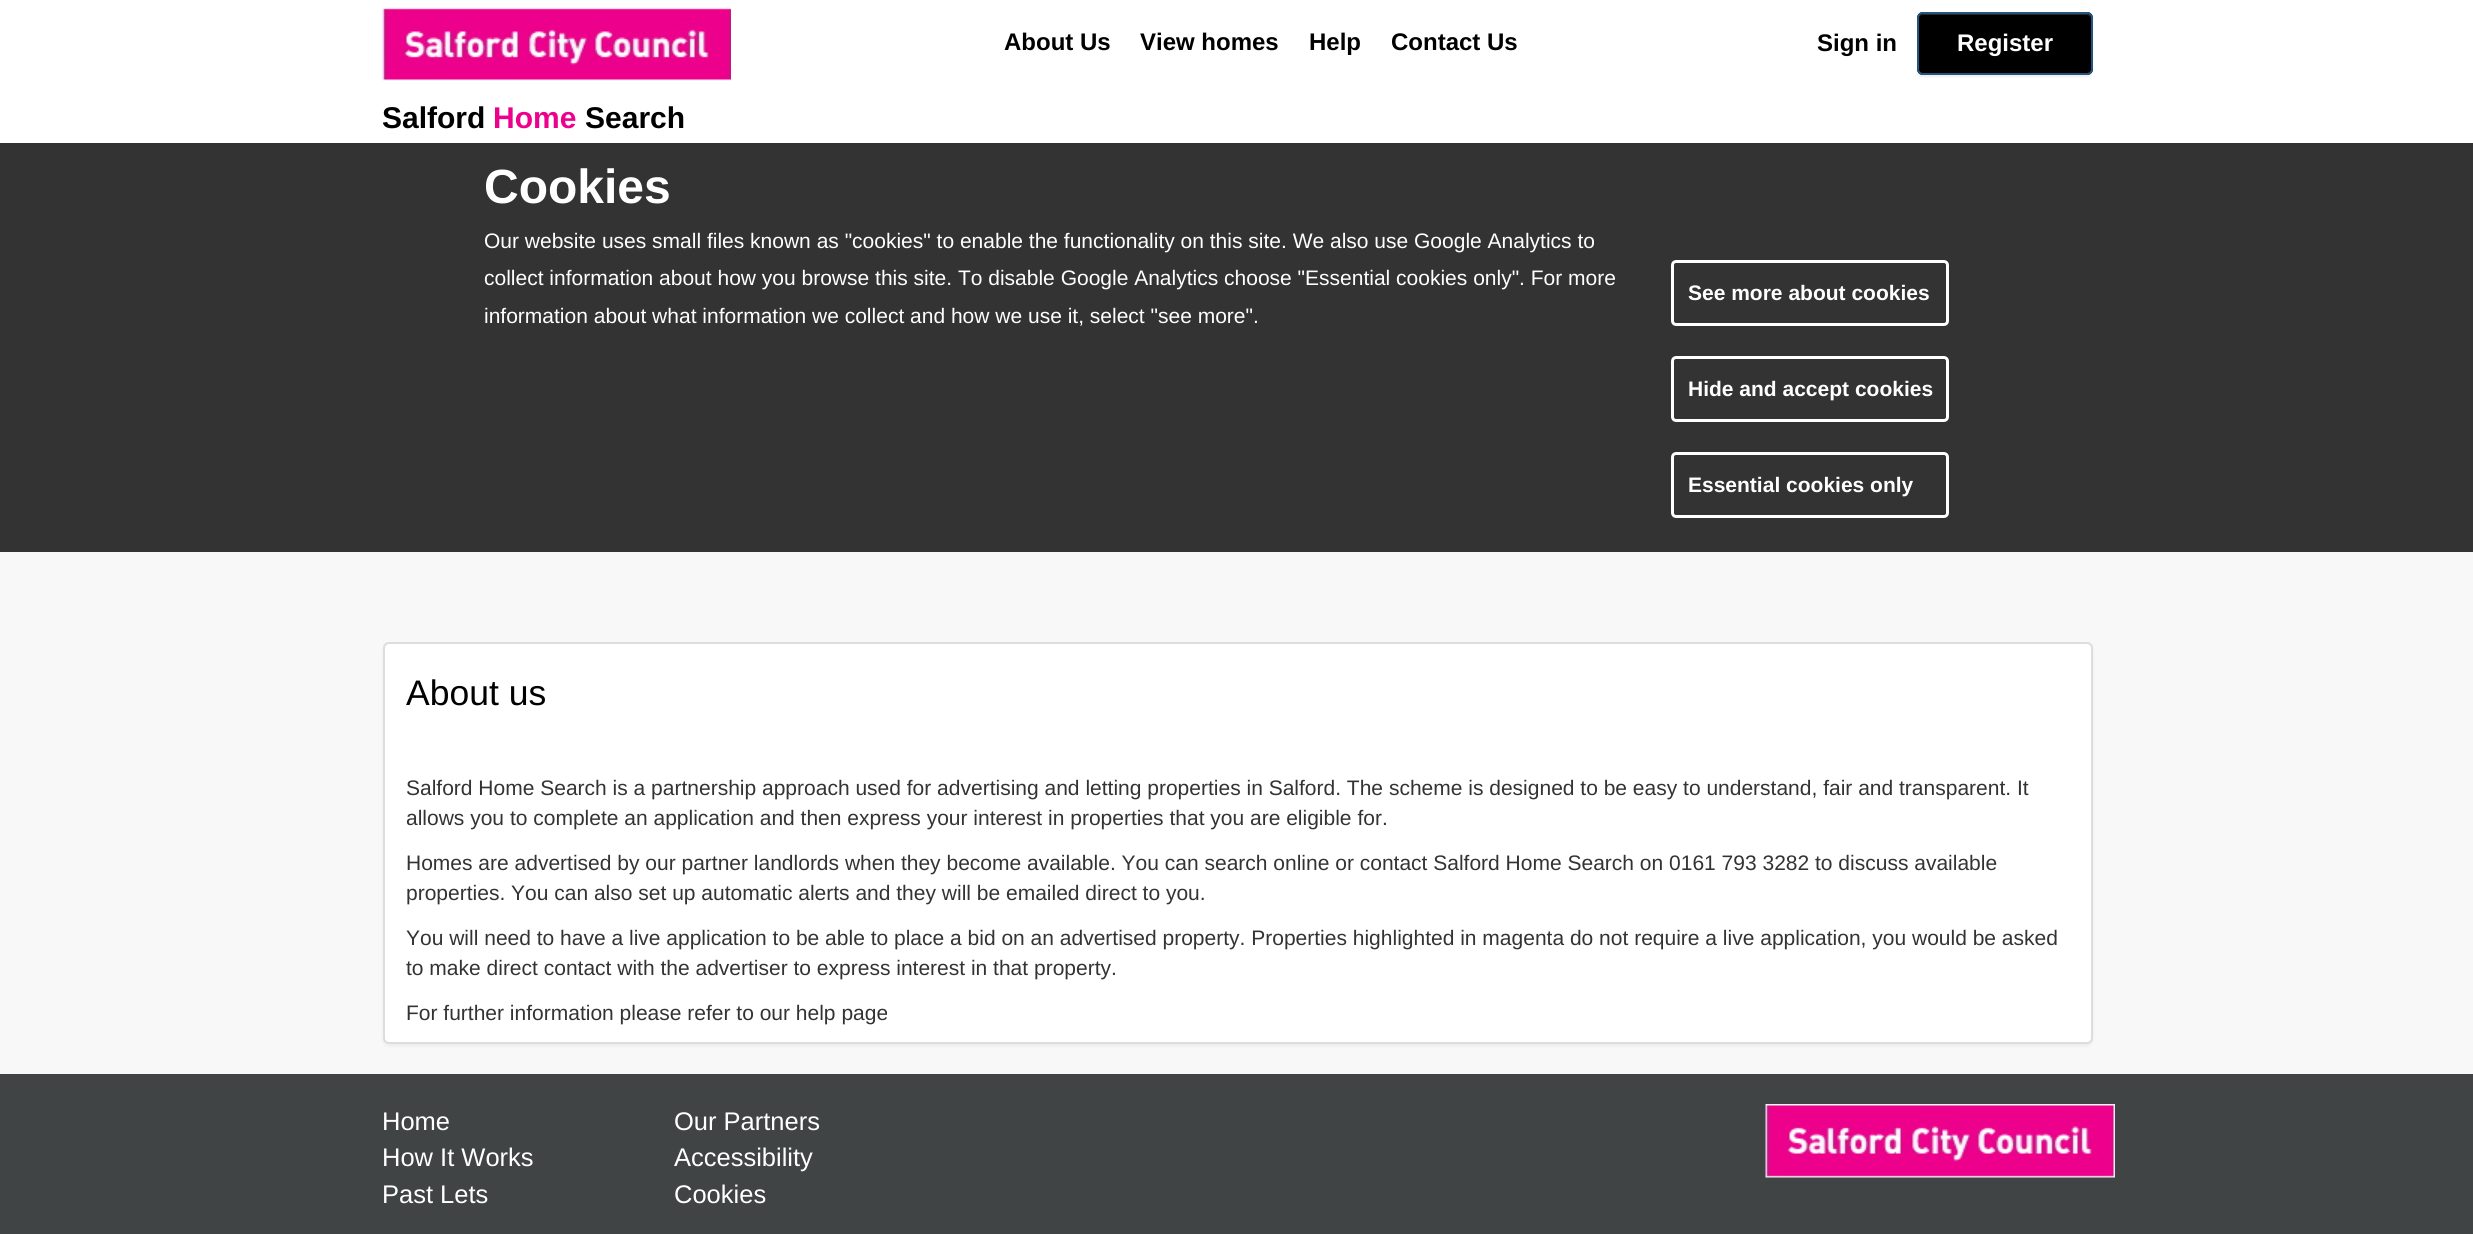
import math
import cairo

surface = cairo.ImageSurface(cairo.FORMAT_RGB24, 2473, 1234)
ctx = cairo.Context(surface)
options = cairo.FontOptions()
options.set_hint_metrics(cairo.HINT_METRICS_OFF)
options.set_hint_style(cairo.HINT_STYLE_NONE)
ctx.set_font_options(options)
ctx.set_miter_limit(4)


def round_rect(x, y, w, h, r):
    ctx.new_sub_path()
    for i, (u, v) in enumerate([(x + w - r, y + h - r), (x + r, y + h - r), (x + r, y + r), (x + w - r, y + r)]):
        ctx.arc(u, v, r, i * math.pi / 2, (i + 1) * math.pi / 2)
    ctx.close_path()


def shadow(x, y, w, h, r, blur, alpha):
    ctx.push_group_with_content(cairo.CONTENT_ALPHA)
    ctx.set_operator(cairo.OPERATOR_SOURCE)
    for i in range(15, -16, -2):
        e = blur * i / 6
        if min(w, h) + 2 * e > 0:
            ctx.set_source_rgba(0, 0, 0, alpha * math.erfc((i - 1) / 8.5) / 2)
            round_rect(x - e, y - e, w + 2 * e, h + 2 * e, max(0, min(r + e + blur * .6, min(w, h) / 2 + e)))
            ctx.fill()
    ctx.mask(ctx.pop_group())


def picture(path, x, y, w, h):
    ctx.save()
    ctx.set_source_surface(cairo.ImageSurface.create_from_png(path), x, y)
    ctx.rectangle(x, y, w, h)
    ctx.fill()
    ctx.restore()


ctx.set_source_rgb(0.969, 0.969, 0.969)
ctx.paint()
ctx.set_source_rgb(0.2, 0.2, 0.2)
ctx.rectangle(0, 143, 2473, 409)
ctx.fill()
ctx.set_source_rgb(0, 0, 0)
shadow(0, 2, 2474, 142, 0, 4, 0.07)
ctx.set_source_rgb(1, 1, 1)
ctx.rectangle(0, 0, 2473, 143)
ctx.fill()
picture("img1.png", 382, 7, 349, 74)
ctx.select_font_face("Liberation Sans", cairo.FONT_SLANT_NORMAL, cairo.FONT_WEIGHT_BOLD)
ctx.set_font_size(24)
ctx.set_source_rgb(0, 0, 0)
ctx.move_to(1004, 50)
ctx.show_text("About Us")
ctx.move_to(1140, 50)
ctx.show_text("View homes")
ctx.move_to(1309, 50)
ctx.show_text("Help")
ctx.move_to(1391, 50)
ctx.show_text("Contact Us")
ctx.move_to(1817, 51)
ctx.show_text("Sign in")
ctx.set_source_rgb(0, 0, 0)
shadow(1917, 14, 176, 63, 6, 1, 0.07)
ctx.set_source_rgb(0, 0, 0)
round_rect(1917, 12, 176, 63, 6)
ctx.fill()
ctx.set_source_rgb(0.149, 0.149, 0.149)
ctx.new_path()
ctx.move_to(1923, 15)
ctx.line_to(2086, 15)
ctx.curve_to(2089, 15, 2091, 17, 2091, 20)
ctx.line_to(2091, 19)
ctx.curve_to(2091, 16, 2089, 14, 2086, 14)
ctx.line_to(1924, 14)
ctx.curve_to(1922, 14, 1921, 15, 1920, 16)
ctx.close_path()
ctx.fill()
round_rect(1918, 13, 174, 61, 5)
ctx.set_source_rgb(0.141, 0.333, 0.502)
ctx.stroke()
ctx.set_source_rgb(1, 1, 1)
ctx.move_to(1957, 51)
ctx.show_text("Register")
ctx.set_font_size(30)
ctx.set_source_rgb(0, 0, 0)
ctx.move_to(382, 128)
ctx.show_text("Salford")
ctx.set_source_rgb(0.925, 0, 0.549)
ctx.move_to(493, 128)
ctx.show_text("Home")
ctx.set_source_rgb(0, 0, 0)
ctx.move_to(585, 128)
ctx.show_text("Search")
ctx.set_source_rgb(0, 0, 0)
shadow(383, 644, 1710, 402, 6, 1.5, 0.05)
ctx.set_source_rgb(1, 1, 1)
round_rect(384, 643, 1708, 400, 5)
ctx.fill_preserve()
ctx.set_source_rgb(0.867, 0.867, 0.867)
ctx.stroke()
ctx.select_font_face("Liberation Sans")
ctx.set_font_size(35.5)
ctx.set_source_rgb(0, 0, 0)
ctx.move_to(406, 705)
ctx.show_text("About us")
ctx.set_font_size(21)
ctx.set_source_rgb(0.2, 0.2, 0.2)
ctx.move_to(406, 795)
ctx.show_text("Salford Home Search is a partnership approach used for advertising and letting properties in Salford. The scheme is designed to be easy to understand, fair and transparent. It")
ctx.move_to(406, 825)
ctx.show_text("allows you to complete an application and then express your interest in properties that you are eligible for.")
ctx.move_to(406, 870)
ctx.show_text("Homes are advertised by our partner landlords when they become available. You can search online or contact Salford Home Search on 0161 793 3282 to discuss available")
ctx.move_to(406, 900)
ctx.show_text("properties. You can also set up automatic alerts and they will be emailed direct to you.")
ctx.move_to(406, 945)
ctx.show_text("You will need to have a live application to be able to place a bid on an advertised property. Properties highlighted in magenta do not require a live application, you would be asked")
ctx.move_to(406, 975)
ctx.show_text("to make direct contact with the advertiser to express interest in that property.")
ctx.move_to(406, 1020)
ctx.show_text("For further information please refer to our help page")
ctx.set_source_rgb(0.251, 0.267, 0.267)
ctx.rectangle(0, 1074, 2473, 160)
ctx.fill()
picture("img2.png", 1765, 1104, 350, 74)
ctx.set_font_size(25.5)
ctx.set_source_rgb(1, 1, 1)
ctx.move_to(382, 1130)
ctx.show_text("Home")
ctx.move_to(382, 1166)
ctx.show_text("How It Works")
ctx.move_to(382, 1203)
ctx.show_text("Past Lets")
ctx.move_to(674, 1130)
ctx.show_text("Our Partners")
ctx.move_to(674, 1166)
ctx.show_text("Accessibility")
ctx.move_to(674, 1203)
ctx.show_text("Cookies")
ctx.select_font_face("Liberation Sans", cairo.FONT_SLANT_NORMAL, cairo.FONT_WEIGHT_BOLD)
ctx.set_font_size(48)
ctx.move_to(484, 203)
ctx.show_text("Cookies")
ctx.select_font_face("Liberation Sans")
ctx.set_font_size(21)
ctx.move_to(484, 248)
ctx.show_text("Our website uses small files known as \"cookies\" to enable the functionality on this site. We also use Google Analytics to")
ctx.move_to(484, 285)
ctx.show_text("collect information about how you browse this site. To disable Google Analytics choose \"Essential cookies only\". For more")
ctx.move_to(484, 323)
ctx.show_text("information about what information we collect and how we use it, select \"see more\".")
round_rect(1672.5, 261.5, 275, 63, 3.5)
ctx.set_line_width(3)
ctx.stroke()
ctx.select_font_face("Liberation Sans", cairo.FONT_SLANT_NORMAL, cairo.FONT_WEIGHT_BOLD)
ctx.move_to(1688, 300)
ctx.show_text("See more about cookies")
round_rect(1672.5, 357.5, 275, 63, 3.5)
ctx.stroke()
ctx.move_to(1688, 396)
ctx.show_text("Hide and accept cookies")
round_rect(1672.5, 453.5, 275, 63, 3.5)
ctx.stroke()
ctx.move_to(1688, 492)
ctx.show_text("Essential cookies only")
surface.write_to_png("page.png")
